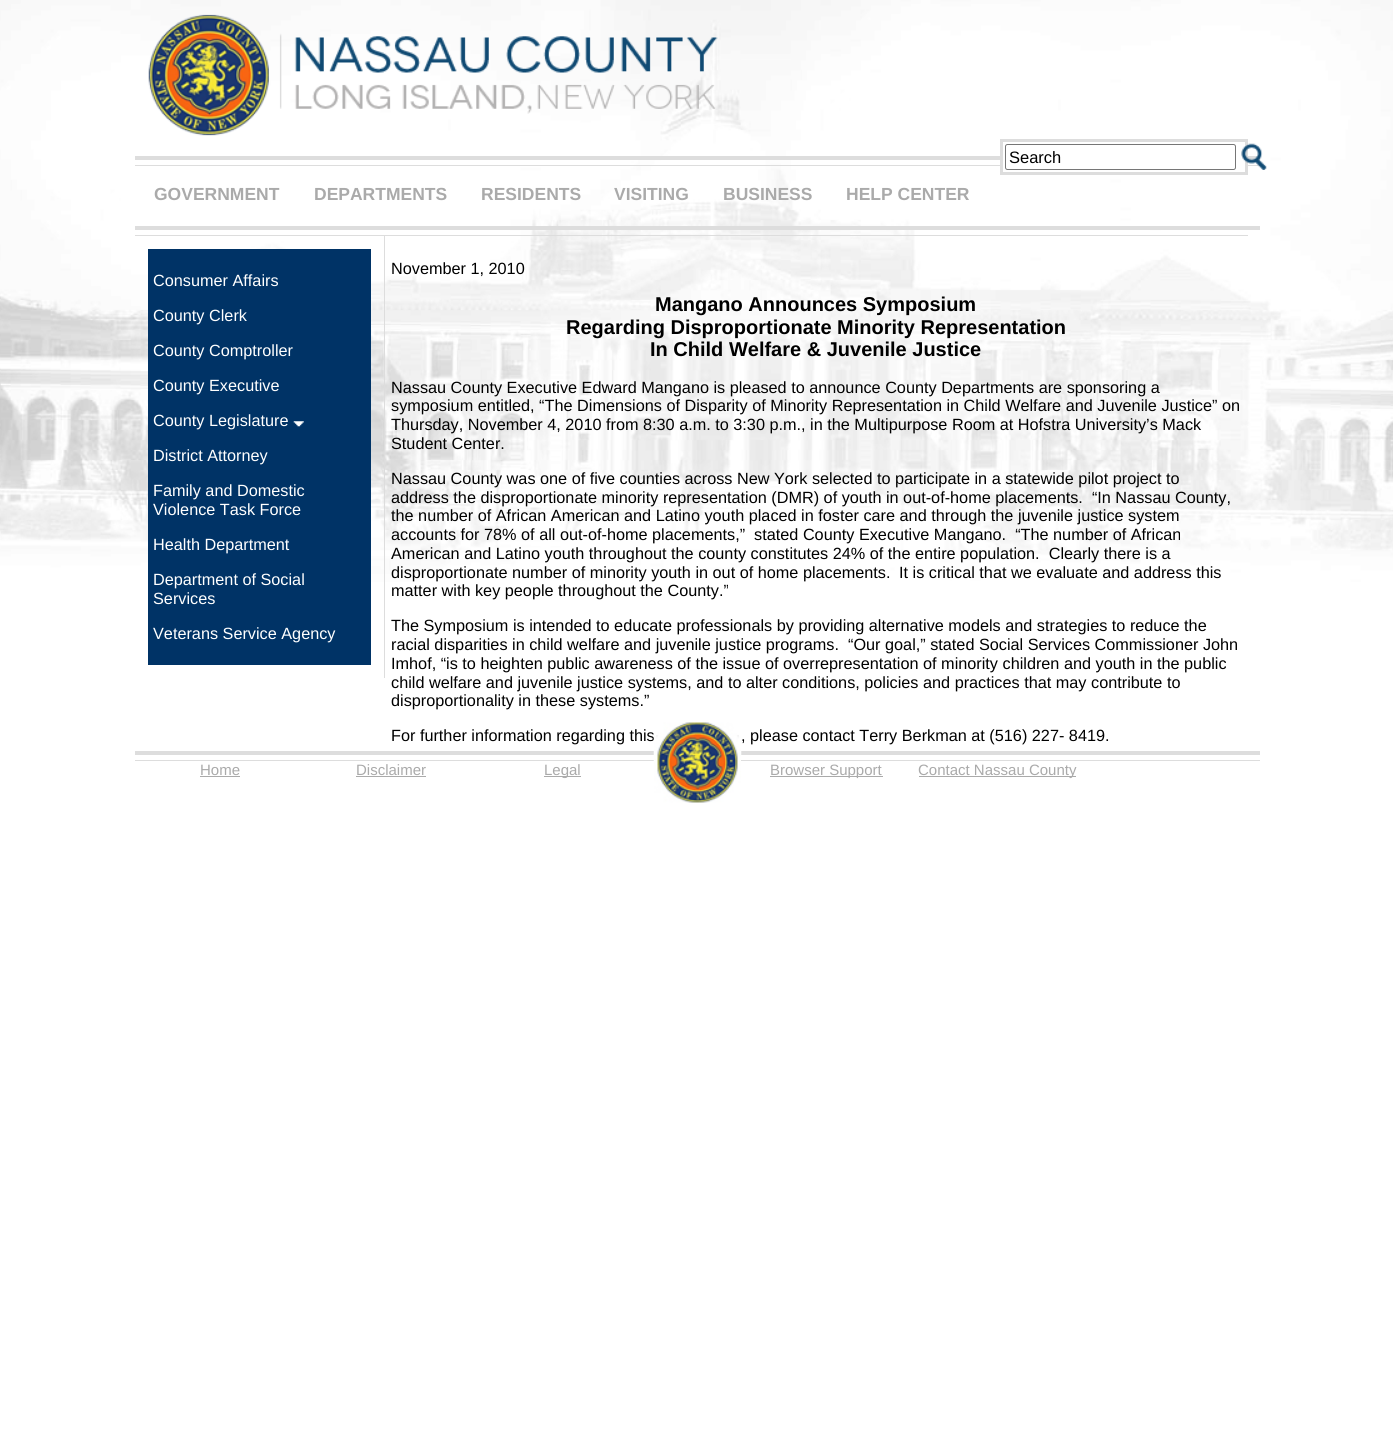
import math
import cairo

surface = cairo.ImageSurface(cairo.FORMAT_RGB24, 1393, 1444)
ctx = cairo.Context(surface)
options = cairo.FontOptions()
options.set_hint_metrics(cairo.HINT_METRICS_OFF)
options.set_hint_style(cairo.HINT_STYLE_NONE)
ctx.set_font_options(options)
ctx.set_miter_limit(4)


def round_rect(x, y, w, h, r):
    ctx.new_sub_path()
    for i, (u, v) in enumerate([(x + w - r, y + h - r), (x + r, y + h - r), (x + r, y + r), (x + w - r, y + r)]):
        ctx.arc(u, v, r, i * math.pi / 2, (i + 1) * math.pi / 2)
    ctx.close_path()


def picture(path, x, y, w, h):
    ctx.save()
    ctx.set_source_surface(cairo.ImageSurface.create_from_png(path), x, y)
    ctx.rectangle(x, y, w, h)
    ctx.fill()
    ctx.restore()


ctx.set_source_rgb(1, 1, 1)
ctx.paint()
picture("img1.png", 0, 0, 1393, 582)
ctx.set_source_rgb(0.867, 0.867, 0.867)
ctx.rectangle(135, 156, 1125, 4)
ctx.fill()
picture("img2.png", 148, 14, 570, 122)
ctx.rectangle(135, 165, 1125, 1)
ctx.fill()
ctx.rectangle(135, 226, 1125, 4)
ctx.fill()
ctx.set_source_rgb(1, 1, 1)
ctx.rectangle(1003, 156, 242, 10)
ctx.fill()
ctx.rectangle(1001.5, 140.5, 245, 33)
ctx.set_source_rgb(0.867, 0.867, 0.867)
ctx.set_line_width(3)
ctx.stroke()
round_rect(1005.5, 144.5, 230, 25, 2)
ctx.set_source_rgb(0.463, 0.463, 0.463)
ctx.set_line_width(1)
ctx.stroke()
ctx.select_font_face("Liberation Sans")
ctx.set_font_size(16.5)
ctx.set_source_rgb(0, 0, 0)
ctx.move_to(1009, 163)
ctx.show_text("Search")
picture("img3.png", 1241, 143, 26, 27)
ctx.select_font_face("Liberation Sans", cairo.FONT_SLANT_NORMAL, cairo.FONT_WEIGHT_BOLD)
ctx.set_font_size(17.5)
ctx.set_source_rgb(0.667, 0.667, 0.667)
ctx.move_to(154, 200)
ctx.show_text("GOVERNMENT")
ctx.move_to(314, 200)
ctx.show_text("DEPARTMENTS")
ctx.move_to(481, 200)
ctx.show_text("RESIDENTS")
ctx.move_to(614, 200)
ctx.show_text("VISITING")
ctx.move_to(723, 200)
ctx.show_text("BUSINESS")
ctx.move_to(846, 200)
ctx.show_text("HELP CENTER")
ctx.set_source_rgb(0.867, 0.867, 0.867)
ctx.rectangle(135, 235, 1113, 1)
ctx.fill()
ctx.rectangle(384, 235, 1, 443)
ctx.fill()
ctx.set_source_rgb(0, 0.2, 0.4)
ctx.rectangle(148, 249, 223, 416)
ctx.fill()
ctx.select_font_face("Liberation Sans")
ctx.set_font_size(16.25)
ctx.set_source_rgb(1, 1, 1)
ctx.move_to(153, 286)
ctx.show_text("Consumer Affairs")
ctx.move_to(153, 321)
ctx.show_text("County Clerk")
ctx.move_to(153, 356)
ctx.show_text("County Comptroller")
ctx.move_to(153, 391)
ctx.show_text("County Executive")
ctx.move_to(153, 426)
ctx.show_text("County Legislature")
picture("img4.png", 293, 421, 11, 6)
ctx.move_to(153, 461)
ctx.show_text("District Attorney")
ctx.move_to(153, 496)
ctx.show_text("Family and Domestic")
ctx.move_to(153, 515)
ctx.show_text("Violence Task Force")
ctx.move_to(153, 550)
ctx.show_text("Health Department")
ctx.move_to(153, 585)
ctx.show_text("Department of Social")
ctx.move_to(153, 604)
ctx.show_text("Services")
ctx.move_to(153, 639)
ctx.show_text("Veterans Service Agency")
ctx.set_source_rgb(0, 0, 0)
ctx.move_to(391, 274)
ctx.show_text("November 1, 2010")
ctx.select_font_face("Liberation Sans", cairo.FONT_SLANT_NORMAL, cairo.FONT_WEIGHT_BOLD)
ctx.set_font_size(20)
ctx.move_to(655, 311)
ctx.show_text("Mangano Announces Symposium")
ctx.move_to(566, 334)
ctx.show_text("Regarding Disproportionate Minority Representation")
ctx.move_to(650, 356)
ctx.show_text("In Child Welfare & Juvenile Justice")
ctx.select_font_face("Liberation Sans")
ctx.set_font_size(16.25)
ctx.move_to(391, 393)
ctx.show_text("Nassau County Executive Edward Mangano is pleased to announce County Departments are sponsoring a")
ctx.move_to(391, 411)
ctx.show_text("symposium entitled, “The Dimensions of Disparity of Minority Representation in Child Welfare and Juvenile Justice” on")
ctx.move_to(391, 430)
ctx.show_text("Thursday, November 4, 2010 from 8:30 a.m. to 3:30 p.m., in the Multipurpose Room at Hofstra University’s Mack")
ctx.move_to(391, 449)
ctx.show_text("Student Center.")
ctx.move_to(391, 484)
ctx.show_text("Nassau County was one of five counties across New York selected to participate in a statewide pilot project to")
ctx.move_to(391, 503)
ctx.show_text("address the disproportionate minority representation (DMR) of youth in out-of-home placements.  “In Nassau County,")
ctx.move_to(391, 521)
ctx.show_text("the number of African American and Latino youth placed in foster care and through the juvenile justice system")
ctx.move_to(391, 540)
ctx.show_text("accounts for 78% of all out-of-home placements,”  stated County Executive Mangano.  “The number of African")
ctx.move_to(391, 559)
ctx.show_text("American and Latino youth throughout the county constitutes 24% of the entire population.  Clearly there is a")
ctx.move_to(391, 578)
ctx.show_text("disproportionate number of minority youth in out of home placements.")
ctx.move_to(899, 578)
ctx.show_text("It is critical that we evaluate and address this")
ctx.move_to(391, 596)
ctx.show_text("matter with key people throughout the County.”")
ctx.move_to(391, 631)
ctx.show_text("The Symposium is intended to educate professionals by providing alternative models and strategies to reduce the")
ctx.move_to(391, 650)
ctx.show_text("racial disparities in child welfare and juvenile justice programs.")
ctx.move_to(848, 650)
ctx.show_text("“Our goal,” stated Social Services Commissioner John")
ctx.move_to(391, 669)
ctx.show_text("Imhof, “is to heighten public awareness of the issue of overrepresentation of minority children and youth in the public")
ctx.move_to(391, 688)
ctx.show_text("child welfare and juvenile justice systems, and to alter conditions, policies and practices that may contribute to")
ctx.move_to(391, 706)
ctx.show_text("disproportionality in these systems.”")
ctx.move_to(391, 741)
ctx.show_text("For further information regarding this")
ctx.move_to(741, 741)
ctx.show_text(", please contact Terry Berkman at (516) 227- 8419.")
ctx.set_source_rgb(0.867, 0.867, 0.867)
ctx.rectangle(135, 751, 1125, 4)
ctx.fill()
ctx.rectangle(135, 760, 519, 1)
ctx.fill()
ctx.set_font_size(15)
ctx.set_source_rgb(0.667, 0.667, 0.667)
ctx.move_to(200, 775)
ctx.show_text("Home")
ctx.rectangle(200, 776, 40, 1)
ctx.fill()
ctx.move_to(356, 775)
ctx.show_text("Disclaimer")
ctx.rectangle(356, 776, 70, 1)
ctx.fill()
ctx.rectangle(544, 776, 37, 1)
ctx.fill()
ctx.move_to(544, 775)
ctx.show_text("Legal")
picture("img5.png", 653, 722, 89, 81)
ctx.set_source_rgb(0.867, 0.867, 0.867)
ctx.rectangle(741, 760, 519, 1)
ctx.fill()
ctx.set_source_rgb(0.667, 0.667, 0.667)
ctx.rectangle(770, 776, 113, 1)
ctx.fill()
ctx.move_to(770, 775)
ctx.show_text("Browser Support")
ctx.rectangle(919, 776, 157, 1)
ctx.fill()
ctx.move_to(918, 775)
ctx.show_text("Contact Nassau County")
surface.write_to_png("page.png")
